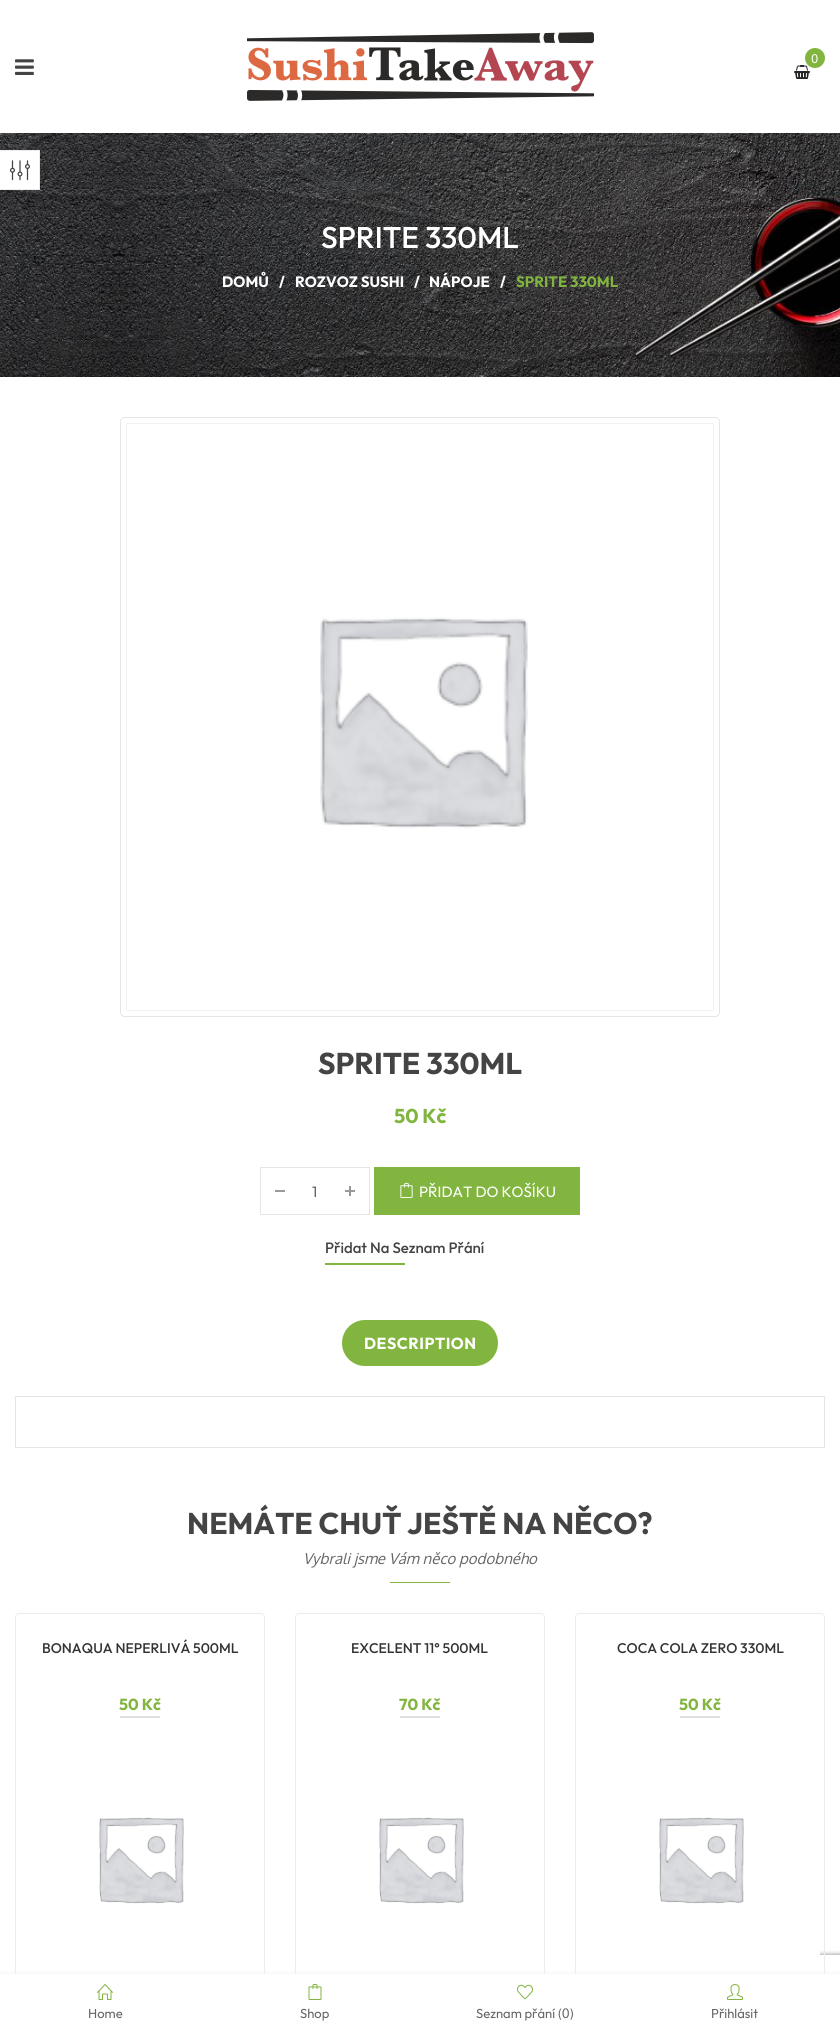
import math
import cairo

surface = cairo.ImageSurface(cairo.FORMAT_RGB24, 840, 2029)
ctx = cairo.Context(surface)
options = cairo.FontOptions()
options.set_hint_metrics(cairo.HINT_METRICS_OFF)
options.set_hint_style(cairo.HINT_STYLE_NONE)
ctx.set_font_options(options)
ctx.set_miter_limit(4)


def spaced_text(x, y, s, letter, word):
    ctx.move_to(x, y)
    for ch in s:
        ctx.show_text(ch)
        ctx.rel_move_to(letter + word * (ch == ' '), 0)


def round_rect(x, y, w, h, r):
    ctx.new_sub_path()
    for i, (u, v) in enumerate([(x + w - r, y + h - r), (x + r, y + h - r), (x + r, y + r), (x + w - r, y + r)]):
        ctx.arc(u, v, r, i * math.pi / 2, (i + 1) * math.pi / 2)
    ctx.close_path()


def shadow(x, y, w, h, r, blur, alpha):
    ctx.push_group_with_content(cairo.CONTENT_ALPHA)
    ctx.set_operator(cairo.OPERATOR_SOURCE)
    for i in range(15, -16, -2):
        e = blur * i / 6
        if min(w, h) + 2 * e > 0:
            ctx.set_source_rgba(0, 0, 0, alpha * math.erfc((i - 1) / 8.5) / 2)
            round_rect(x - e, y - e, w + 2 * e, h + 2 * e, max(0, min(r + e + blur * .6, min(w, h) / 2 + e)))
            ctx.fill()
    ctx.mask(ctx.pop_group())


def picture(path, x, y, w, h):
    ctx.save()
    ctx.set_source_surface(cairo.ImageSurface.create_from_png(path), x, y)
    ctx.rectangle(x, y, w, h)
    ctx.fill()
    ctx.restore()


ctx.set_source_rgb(1, 1, 1)
ctx.paint()
picture("img1.png", 15, 59, 19, 16)
picture("img2.png", 247, 32, 347, 69)
picture("img3.png", 794, 65, 16, 14)
ctx.set_source_rgb(0.51, 0.71, 0.247)
ctx.arc(815, 58, 10, 0, 2 * math.pi)
ctx.fill()
ctx.select_font_face("Oxygen")
ctx.set_font_size(12)
ctx.set_source_rgb(1, 1, 1)
ctx.move_to(811, 63)
ctx.show_text("0")
picture("img4.png", 0, 133, 840, 244)
ctx.select_font_face("Outfit Medium")
ctx.set_font_size(30)
ctx.move_to(321, 248)
ctx.show_text("SPRITE 330ML")
ctx.select_font_face("Outfit", cairo.FONT_SLANT_NORMAL, cairo.FONT_WEIGHT_BOLD)
ctx.set_font_size(15)
ctx.move_to(222, 287)
ctx.show_text("DOMŮ")
ctx.move_to(279, 287)
ctx.show_text("/")
ctx.move_to(295, 287)
ctx.show_text("ROZVOZ SUSHI")
ctx.move_to(414, 287)
ctx.show_text("/")
ctx.move_to(429, 287)
ctx.show_text("NÁPOJE")
ctx.move_to(500, 287)
ctx.show_text("/")
ctx.set_source_rgb(0.51, 0.71, 0.247)
ctx.move_to(516, 287)
ctx.show_text("SPRITE 330ML")
ctx.set_source_rgb(1, 1, 1)
ctx.rectangle(0, 151, 39, 38)
ctx.fill()
ctx.set_source_rgb(0.922, 0.922, 0.922)
ctx.rectangle(0, 150, 40, 1)
ctx.fill()
ctx.rectangle(39, 150, 1, 40)
ctx.fill()
ctx.rectangle(0, 189, 40, 1)
ctx.fill()
picture("img5.png", 10, 160, 20, 21)
round_rect(120.5, 417.5, 599, 599, 4.5)
ctx.set_source_rgb(0.898, 0.898, 0.898)
ctx.set_line_width(1)
ctx.stroke()
ctx.rectangle(126.5, 423.5, 587, 587)
ctx.set_source_rgb(0.949, 0.949, 0.949)
ctx.stroke()
picture("img6.png", 320, 617, 208, 212)
ctx.set_font_size(30)
ctx.set_source_rgb(0.267, 0.267, 0.267)
ctx.move_to(318, 1074)
ctx.show_text("SPRITE 330ML")
ctx.set_font_size(20)
ctx.set_source_rgb(0.51, 0.71, 0.247)
ctx.move_to(394, 1123)
ctx.show_text("50 Kč")
ctx.set_source_rgb(0.898, 0.898, 0.898)
ctx.rectangle(260, 1167, 110, 1)
ctx.fill()
ctx.rectangle(260, 1214, 70, 1)
ctx.fill()
ctx.rectangle(260, 1167, 1, 48)
ctx.fill()
ctx.set_source_rgb(0.6, 0.6, 0.6)
ctx.rectangle(275, 1190, 10, 2)
ctx.fill()
ctx.select_font_face("Outfit")
ctx.set_font_size(15)
ctx.set_source_rgb(0.4, 0.4, 0.4)
ctx.move_to(312, 1197)
ctx.show_text("1")
ctx.set_source_rgb(0.898, 0.898, 0.898)
ctx.rectangle(369, 1167, 1, 48)
ctx.fill()
ctx.rectangle(330, 1214, 40, 1)
ctx.fill()
ctx.set_source_rgb(0.6, 0.6, 0.6)
ctx.rectangle(349, 1186, 2, 10)
ctx.fill()
ctx.rectangle(345, 1190, 10, 2)
ctx.fill()
ctx.set_source_rgb(0.51, 0.71, 0.247)
ctx.rectangle(374, 1167, 206, 48)
ctx.fill()
picture("img7.png", 400, 1182, 13, 16)
ctx.set_source_rgb(1, 1, 1)
ctx.move_to(419, 1197)
ctx.show_text("PŘIDAT DO KOŠÍKU")
ctx.select_font_face("Outfit Medium")
ctx.set_source_rgb(0.267, 0.267, 0.267)
ctx.move_to(325, 1253)
ctx.show_text("Přidat Na Seznam Přání")
ctx.set_source_rgb(0.51, 0.71, 0.247)
ctx.rectangle(325, 1263, 80, 2)
ctx.fill()
round_rect(342, 1320, 156, 46, 23)
ctx.fill()
ctx.select_font_face("Outfit", cairo.FONT_SLANT_NORMAL, cairo.FONT_WEIGHT_BOLD)
ctx.set_font_size(16)
ctx.set_source_rgb(1, 1, 1)
spaced_text(364, 1349, "DESCRIPTION", 0.5, 0)
ctx.rectangle(15.5, 1396.5, 809, 51)
ctx.set_source_rgb(0.898, 0.898, 0.898)
ctx.stroke()
ctx.set_font_size(30)
ctx.set_source_rgb(0.267, 0.267, 0.267)
ctx.move_to(187, 1534)
ctx.show_text("NEMÁTE CHUŤ JEŠTĚ NA NĚCO?")
ctx.select_font_face("Oxygen", cairo.FONT_SLANT_ITALIC)
ctx.set_font_size(15)
ctx.set_source_rgb(0.4, 0.4, 0.4)
ctx.move_to(303, 1564)
ctx.show_text("Vybrali jsme Vám něco podobného")
ctx.set_source_rgb(0.51, 0.71, 0.247)
ctx.rectangle(390, 1582, 60, 1)
ctx.fill()
round_rect(15.5, 1613.5, 249, 369, 3.5)
ctx.set_source_rgb(0.922, 0.922, 0.922)
ctx.stroke()
ctx.select_font_face("Outfit Medium")
ctx.set_font_size(14)
ctx.set_source_rgb(0.2, 0.2, 0.2)
ctx.move_to(42, 1653)
ctx.show_text("BONAQUA NEPERLIVÁ 500ML")
ctx.select_font_face("Outfit", cairo.FONT_SLANT_NORMAL, cairo.FONT_WEIGHT_BOLD)
ctx.set_font_size(16)
ctx.set_source_rgb(0.51, 0.71, 0.247)
ctx.move_to(119, 1710)
ctx.show_text("50 Kč")
ctx.set_source_rgb(0.878, 0.878, 0.878)
ctx.rectangle(120, 1716, 40, 2)
ctx.fill()
picture("img8.png", 99, 1817, 85, 87)
round_rect(295.5, 1613.5, 249, 369, 3.5)
ctx.set_source_rgb(0.922, 0.922, 0.922)
ctx.stroke()
ctx.select_font_face("Outfit Medium")
ctx.set_font_size(14)
ctx.set_source_rgb(0.2, 0.2, 0.2)
ctx.move_to(351, 1653)
ctx.show_text("EXCELENT 11° 500ML")
ctx.select_font_face("Outfit", cairo.FONT_SLANT_NORMAL, cairo.FONT_WEIGHT_BOLD)
ctx.set_font_size(16)
ctx.set_source_rgb(0.51, 0.71, 0.247)
ctx.move_to(399, 1710)
ctx.show_text("70 Kč")
ctx.set_source_rgb(0.878, 0.878, 0.878)
ctx.rectangle(400, 1716, 40, 2)
ctx.fill()
picture("img8.png", 379, 1817, 85, 87)
ctx.save()
ctx.rectangle(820, 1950, 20, 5)
ctx.clip()
ctx.set_source_rgb(0.502, 0.502, 0.502)
shadow(770, 1955, 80, 60, 2, 2.5, 1)
ctx.restore()
round_rect(575.5, 1613.5, 249, 369, 3.5)
ctx.set_source_rgb(0.922, 0.922, 0.922)
ctx.stroke()
ctx.select_font_face("Outfit Medium")
ctx.set_font_size(14)
ctx.set_source_rgb(0.2, 0.2, 0.2)
ctx.move_to(617, 1653)
ctx.show_text("COCA COLA ZERO 330ML")
ctx.select_font_face("Outfit", cairo.FONT_SLANT_NORMAL, cairo.FONT_WEIGHT_BOLD)
ctx.set_font_size(16)
ctx.set_source_rgb(0.51, 0.71, 0.247)
ctx.move_to(679, 1710)
ctx.show_text("50 Kč")
ctx.set_source_rgb(0.878, 0.878, 0.878)
ctx.rectangle(680, 1716, 40, 2)
ctx.fill()
picture("img9.png", 659, 1817, 161, 157)
ctx.set_source_rgb(0.945, 0.945, 0.945)
shadow(0, 1974, 840, 55, 0, 2.5, 1)
ctx.set_source_rgb(1, 1, 1)
ctx.rectangle(0, 1974, 840, 55)
ctx.fill()
picture("img10.png", 97, 1984, 16, 16)
ctx.select_font_face("Outfit")
ctx.set_font_size(13)
ctx.set_source_rgb(0.4, 0.4, 0.4)
ctx.move_to(88, 2018)
ctx.show_text("Home")
picture("img11.png", 308, 1984, 14, 16)
ctx.move_to(300, 2018)
ctx.show_text("Shop")
picture("img12.png", 517, 1984, 16, 16)
ctx.move_to(476, 2018)
ctx.show_text("Seznam přání")
ctx.select_font_face("Oxygen")
ctx.move_to(558, 2018)
ctx.show_text("(0)")
picture("img13.png", 727, 1984, 16, 16)
ctx.select_font_face("Outfit")
ctx.move_to(711, 2018)
ctx.show_text("Přihlásit")
surface.write_to_png("page.png")
